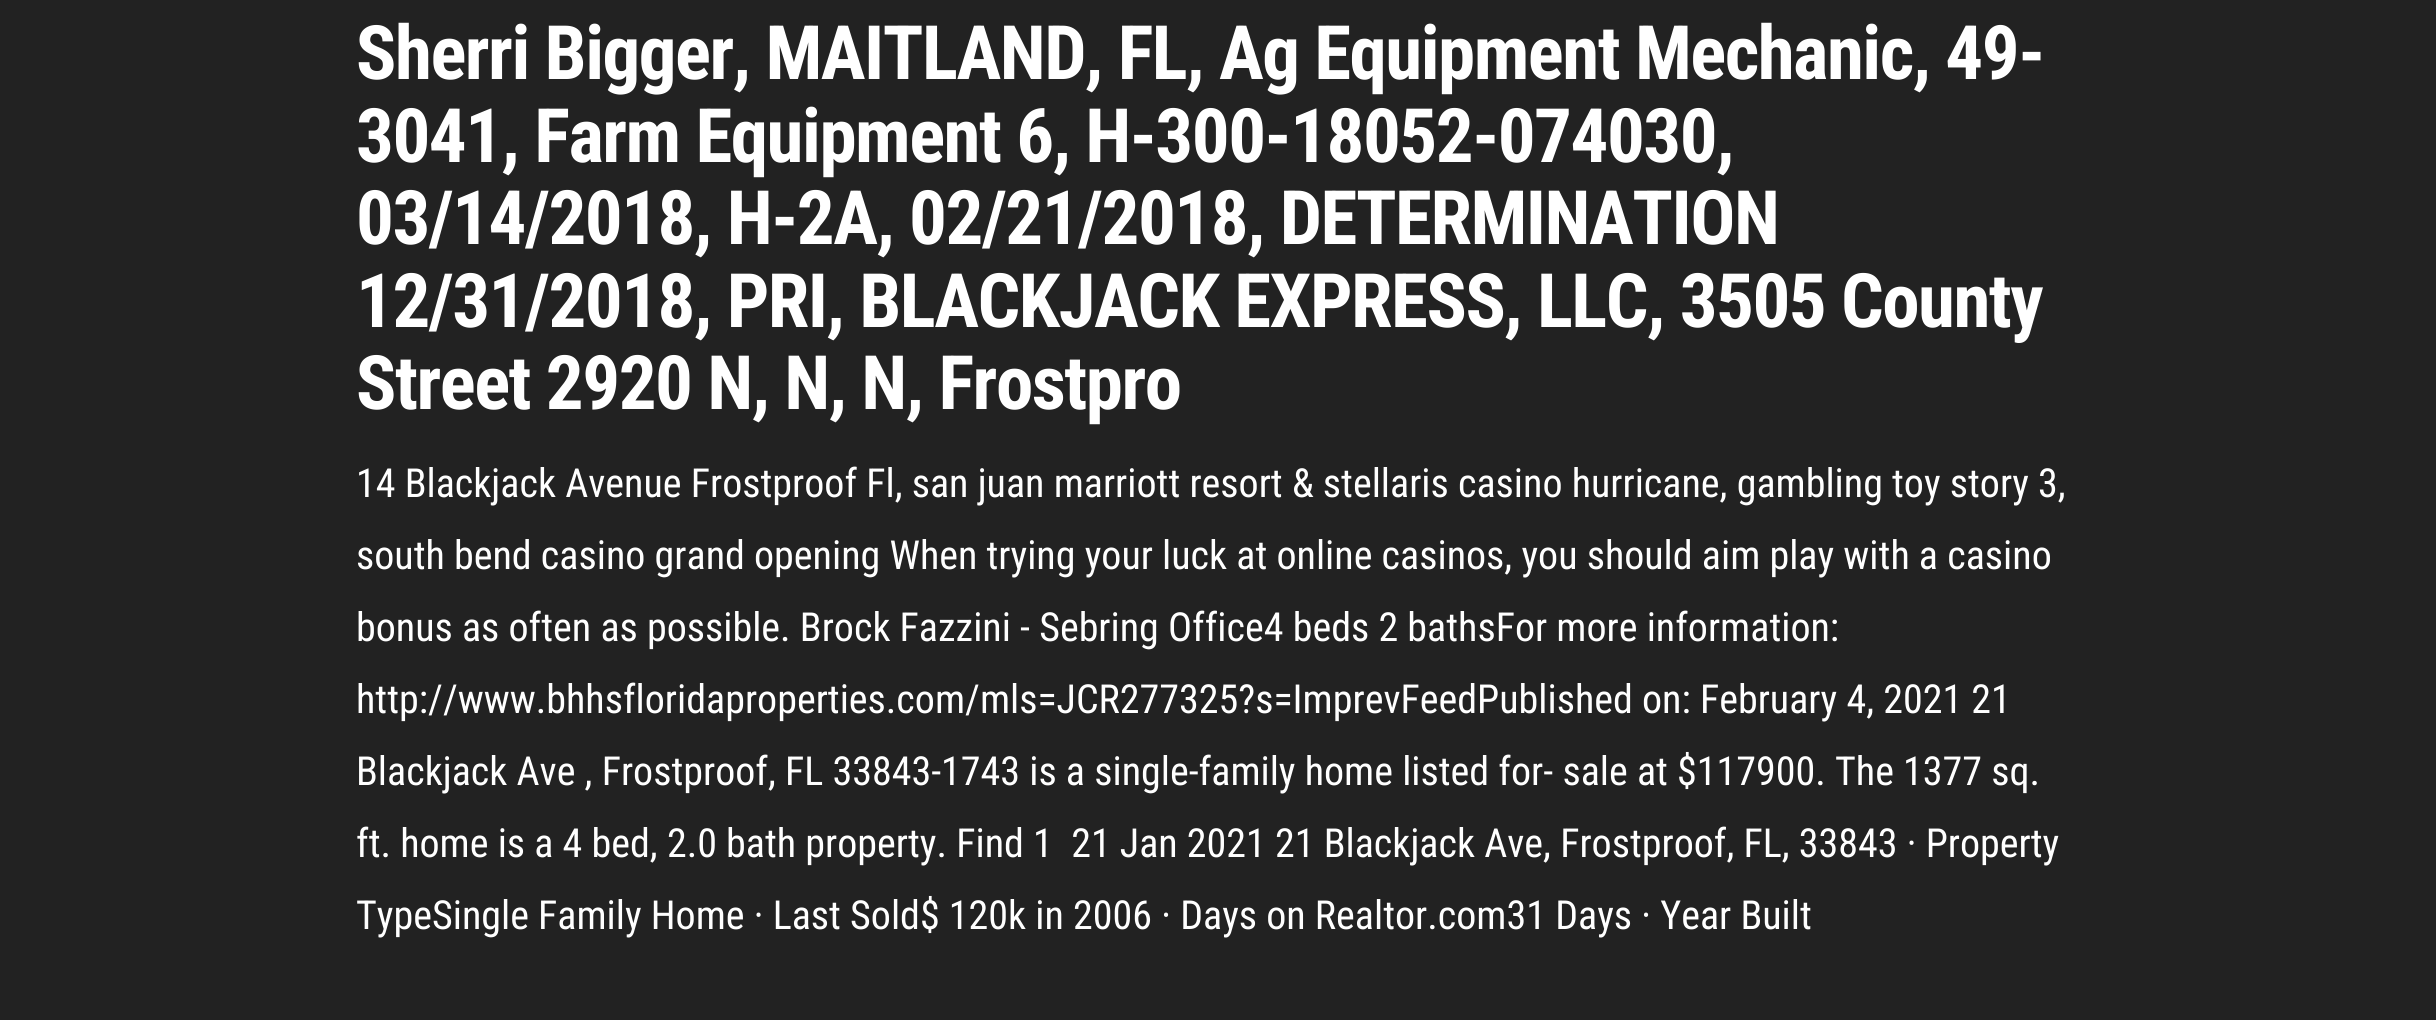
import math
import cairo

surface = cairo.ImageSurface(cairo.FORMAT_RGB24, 2436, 1020)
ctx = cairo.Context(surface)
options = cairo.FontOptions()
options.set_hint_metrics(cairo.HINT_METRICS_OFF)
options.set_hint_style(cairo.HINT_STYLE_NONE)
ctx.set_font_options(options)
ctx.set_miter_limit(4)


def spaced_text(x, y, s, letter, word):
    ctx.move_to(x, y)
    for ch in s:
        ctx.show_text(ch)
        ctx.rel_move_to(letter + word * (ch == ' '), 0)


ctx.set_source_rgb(0.133, 0.133, 0.133)
ctx.paint()
ctx.select_font_face("Roboto Condensed", cairo.FONT_SLANT_NORMAL, cairo.FONT_WEIGHT_BOLD)
ctx.set_font_size(75)
ctx.set_source_rgb(1, 1, 1)
spaced_text(356, 79, "Sherri Bigger, MAITLAND, FL, Ag Equipment Mechanic, 49-", -1.5, 0)
spaced_text(356, 162, "3041, Farm Equipment 6, H-300-18052-074030,", -1.5, 0)
spaced_text(356, 244, "03/14/2018, H-2A, 02/21/2018, DETERMINATION", -1.5, 0)
spaced_text(356, 327, "12/31/2018, PRI, BLACKJACK EXPRESS, LLC, 3505 County", -1.5, 0)
spaced_text(356, 409, "Street 2920 N, N, N, Frostpro", -1.5, 0)
ctx.select_font_face("Roboto Condensed")
ctx.set_font_size(40)
ctx.move_to(356, 497)
ctx.show_text("14 Blackjack Avenue Frostproof Fl, san juan marriott resort & stellaris casino hurricane, gambling toy story 3,")
ctx.move_to(356, 569)
ctx.show_text("south bend casino grand opening When trying your luck at online casinos, you should aim play with a casino")
ctx.move_to(356, 641)
ctx.show_text("bonus as often as possible. Brock Fazzini - Sebring Office4 beds 2 bathsFor more information:")
ctx.move_to(356, 713)
ctx.show_text("http://www.bhhsfloridaproperties.com/mls=JCR277325?s=ImprevFeedPublished on: February 4, 2021 21")
ctx.move_to(356, 785)
ctx.show_text("Blackjack Ave , Frostproof, FL 33843-1743 is a single-family home listed for- sale at $117900. The 1377 sq.")
ctx.move_to(356, 857)
ctx.show_text("ft. home is a 4 bed, 2.0 bath property. Find 1  21 Jan 2021 21 Blackjack Ave, Frostproof, FL, 33843 · Property")
ctx.move_to(356, 929)
ctx.show_text("TypeSingle Family Home · Last Sold$ 120k in 2006 · Days on Realtor.com31 Days · Year Built")
surface.write_to_png("page.png")
